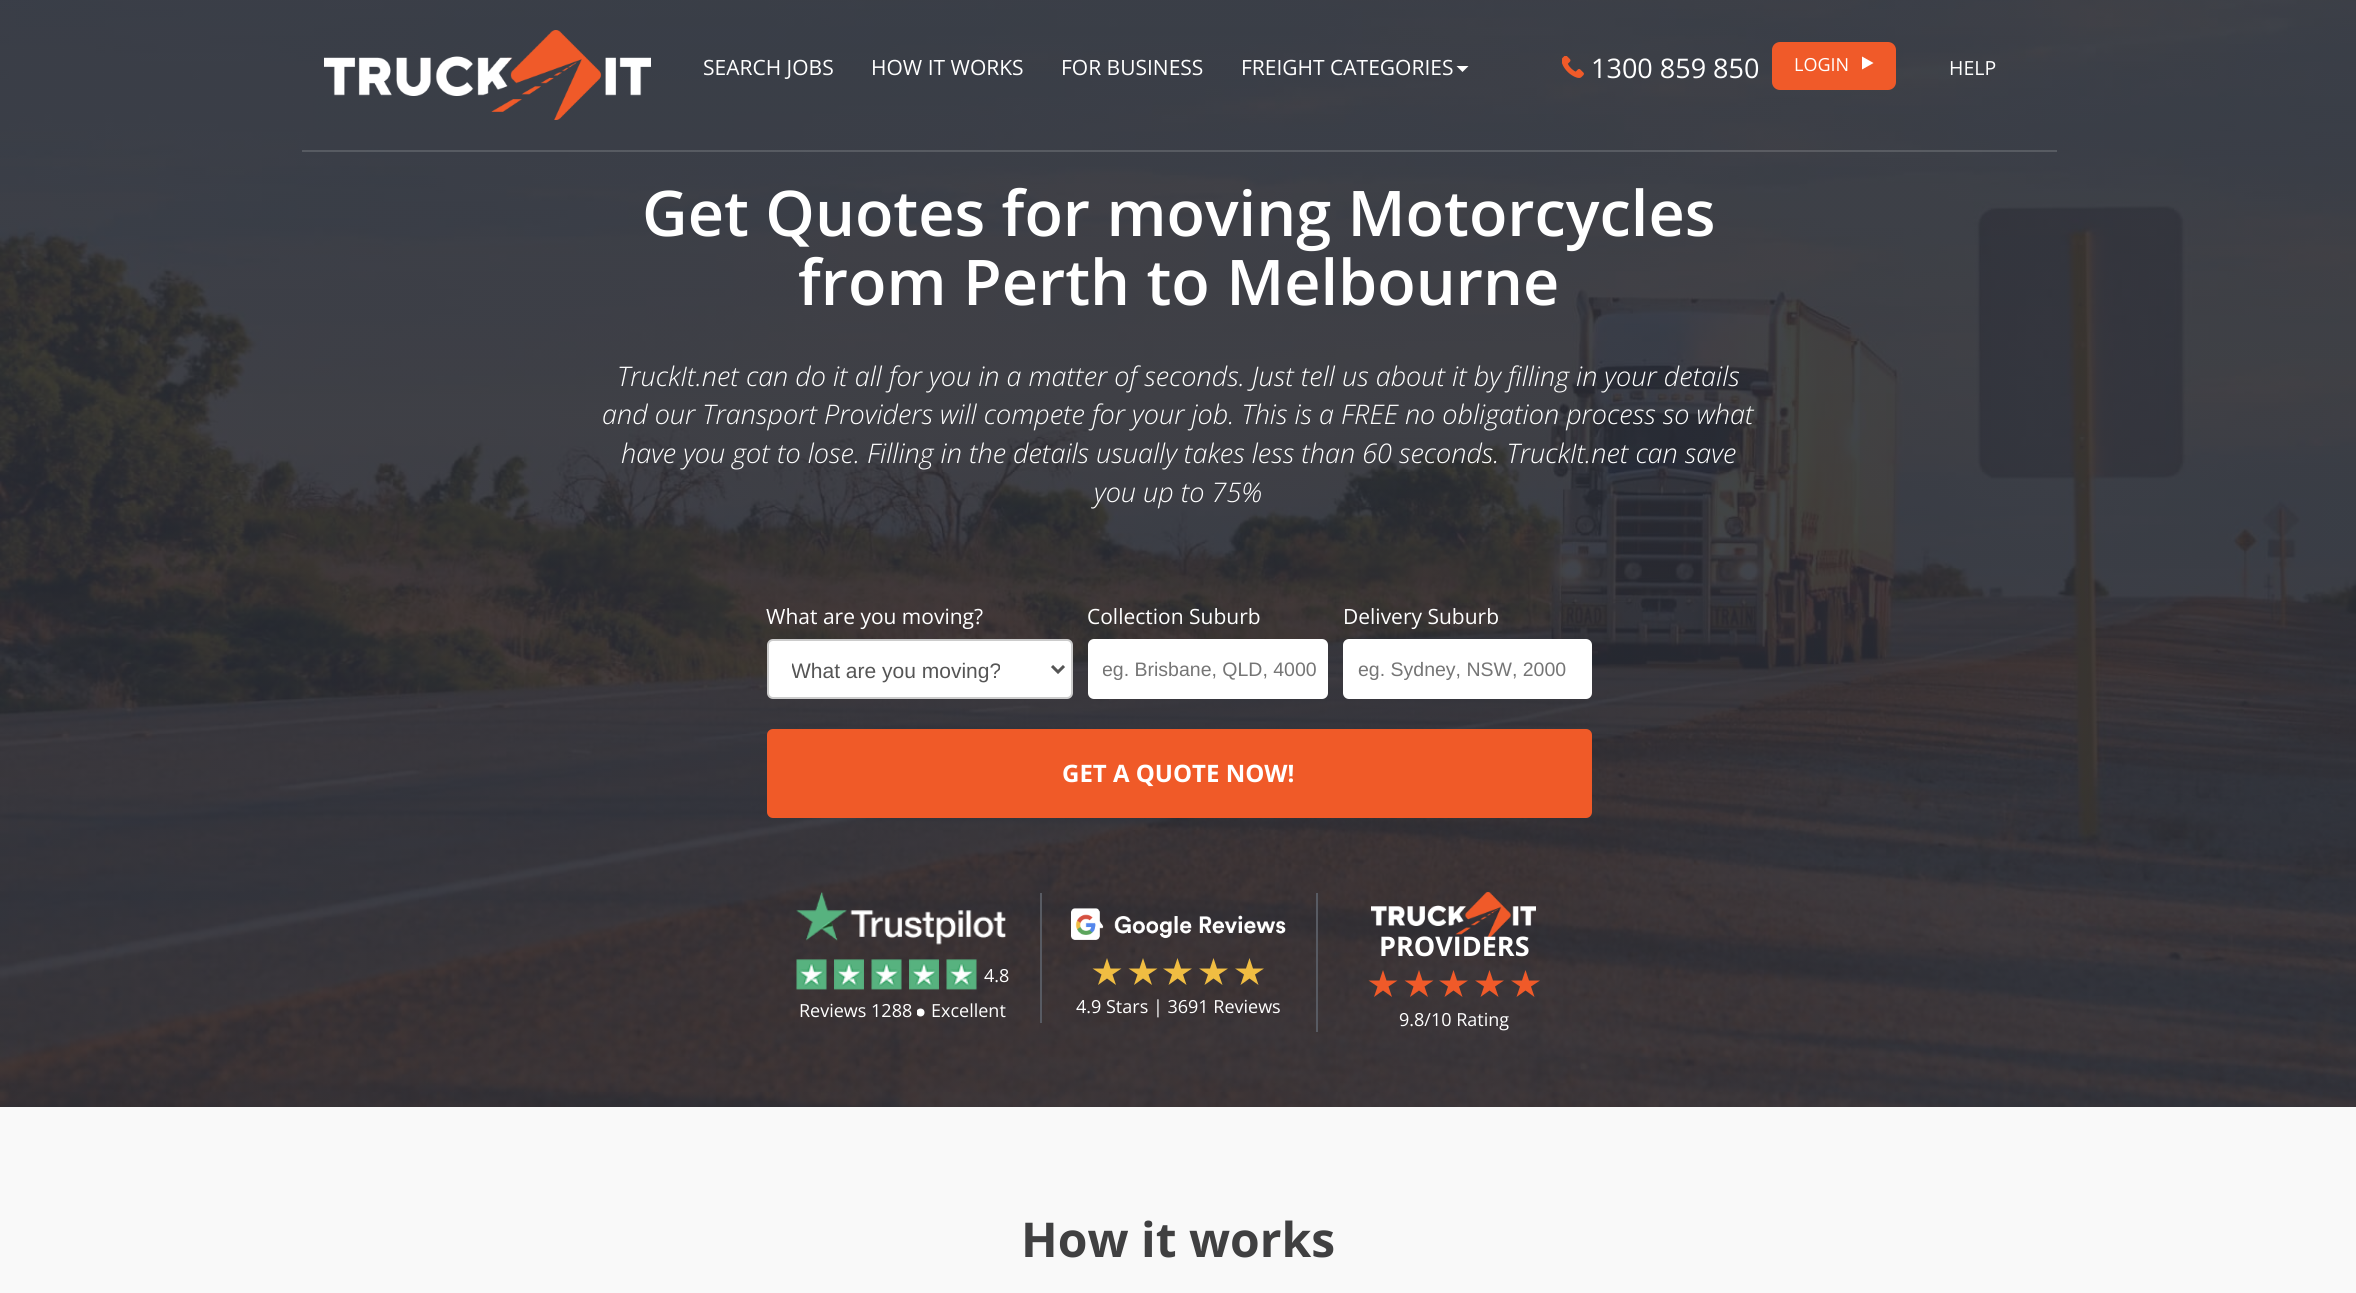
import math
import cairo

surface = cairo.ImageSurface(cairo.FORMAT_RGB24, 2356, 1293)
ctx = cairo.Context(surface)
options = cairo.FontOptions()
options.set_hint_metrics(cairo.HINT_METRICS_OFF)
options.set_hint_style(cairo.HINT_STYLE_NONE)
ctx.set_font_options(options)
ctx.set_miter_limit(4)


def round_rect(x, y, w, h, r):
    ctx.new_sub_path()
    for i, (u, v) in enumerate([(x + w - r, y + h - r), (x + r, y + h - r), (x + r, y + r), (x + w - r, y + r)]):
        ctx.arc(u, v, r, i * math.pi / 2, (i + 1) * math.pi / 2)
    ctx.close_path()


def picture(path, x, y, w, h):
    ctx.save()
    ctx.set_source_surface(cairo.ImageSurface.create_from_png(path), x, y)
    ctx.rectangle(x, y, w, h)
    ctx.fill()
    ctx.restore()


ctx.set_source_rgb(1, 1, 1)
ctx.paint()
picture("img3.png", 0, 0, 2356, 1107)
ctx.set_source_rgba(1, 1, 1, 0.15)
ctx.rectangle(302, 150, 1755, 2)
ctx.fill()
picture("img1.png", 324, 30, 327, 90)
ctx.select_font_face("Open Sans")
ctx.set_font_size(21)
ctx.set_source_rgb(1, 1, 1)
ctx.move_to(703, 75)
ctx.show_text("SEARCH JOBS")
ctx.move_to(871, 75)
ctx.show_text("HOW IT WORKS")
ctx.move_to(1061, 75)
ctx.show_text("FOR BUSINESS")
ctx.move_to(1241, 75)
ctx.show_text("FREIGHT CATEGORIES")
ctx.new_path()
ctx.move_to(1456.5, 66)
ctx.line_to(1468.5, 66)
ctx.line_to(1462.5, 72)
ctx.close_path()
ctx.fill()
picture("img2.png", 1562, 56, 22, 22)
ctx.set_font_size(27)
ctx.move_to(1591, 78)
ctx.show_text("1300 859 850")
ctx.set_source_rgb(0.941, 0.353, 0.161)
round_rect(1772, 42, 124, 48, 8)
ctx.fill()
ctx.set_font_size(18)
ctx.set_source_rgb(1, 1, 1)
ctx.move_to(1794, 71)
ctx.show_text("LOGIN")
ctx.new_path()
ctx.move_to(1873.5, 63)
ctx.line_to(1862, 69.5)
ctx.line_to(1862, 56.5)
ctx.close_path()
ctx.fill()
ctx.set_font_size(19.5)
ctx.move_to(1949, 75)
ctx.show_text("HELP")
ctx.select_font_face("Open Sans SemiBold")
ctx.set_font_size(63)
ctx.move_to(642, 236)
ctx.show_text("Get Quotes for moving Motorcycles")
ctx.move_to(798, 305)
ctx.show_text("from Perth to Melbourne")
ctx.select_font_face("Open Sans Light", cairo.FONT_SLANT_ITALIC)
ctx.set_font_size(27)
ctx.move_to(617, 386)
ctx.show_text("TruckIt.net can do it all for you in a matter of seconds. Just tell us about it by filling in your details")
ctx.move_to(602, 424)
ctx.show_text("and our Transport Providers will compete for your job. This is a FREE no obligation process so what")
ctx.move_to(621, 463)
ctx.show_text("have you got to lose. Filling in the details usually takes less than 60 seconds. TruckIt.net can save")
ctx.move_to(1094, 502)
ctx.show_text("you up to 75%")
ctx.select_font_face("Open Sans")
ctx.set_font_size(21)
ctx.move_to(766, 624)
ctx.show_text("What are you moving?")
round_rect(768, 640, 304, 58, 5)
ctx.fill_preserve()
ctx.set_source_rgb(0.8, 0.8, 0.8)
ctx.stroke()
ctx.new_path()
ctx.move_to(1052, 666)
ctx.line_to(1058, 672)
ctx.line_to(1064, 666)
ctx.set_source_rgb(0.333, 0.333, 0.333)
ctx.set_line_width(3)
ctx.stroke()
ctx.save()
ctx.rectangle(792, 657, 237, 27)
ctx.clip()
ctx.select_font_face("Liberation Sans")
ctx.move_to(791, 678)
ctx.show_text("What are you moving?")
ctx.restore()
ctx.set_source_rgb(1, 1, 1)
ctx.move_to(1087, 624)
ctx.show_text("Collection Suburb")
round_rect(1088, 639, 240, 60, 6)
ctx.fill()
ctx.save()
ctx.rectangle(1103, 659, 222, 22)
ctx.clip()
ctx.select_font_face("Liberation Sans")
ctx.set_font_size(19.5)
ctx.set_source_rgb(0.459, 0.459, 0.459)
ctx.move_to(1102, 676)
ctx.show_text("eg. Brisbane, QLD, 4000")
ctx.restore()
ctx.move_to(1343, 624)
ctx.show_text("Delivery Suburb")
round_rect(1343, 639, 249, 60, 6)
ctx.fill()
ctx.select_font_face("Liberation Sans")
ctx.set_font_size(19.5)
ctx.set_source_rgb(0.459, 0.459, 0.459)
ctx.move_to(1358, 676)
ctx.show_text("eg. Sydney, NSW, 2000")
ctx.set_source_rgb(0.941, 0.353, 0.157)
round_rect(767, 729, 825, 89, 6)
ctx.fill()
ctx.select_font_face("Open Sans", cairo.FONT_SLANT_NORMAL, cairo.FONT_WEIGHT_BOLD)
ctx.set_font_size(24)
ctx.set_source_rgb(1, 1, 1)
ctx.move_to(1062, 782)
ctx.show_text("GET A QUOTE NOW!")
ctx.set_source_rgb(0.345, 0.357, 0.388)
ctx.rectangle(1040, 893, 2, 130)
ctx.fill()
picture("img4.png", 796, 892, 210, 53)
picture("img5.png", 796, 959, 31, 31)
picture("img6.png", 834, 959, 30, 31)
picture("img7.png", 871, 959, 31, 31)
picture("img8.png", 909, 959, 30, 31)
picture("img9.png", 946, 959, 31, 31)
ctx.select_font_face("Open Sans")
ctx.set_font_size(18)
ctx.set_source_rgb(1, 1, 1)
ctx.move_to(984, 982)
ctx.show_text("4.8")
ctx.move_to(799, 1017)
ctx.show_text("Reviews 1288")
ctx.save()
ctx.rectangle(917, 1008, 9, 9)
ctx.clip()
ctx.arc(920.5, 1012.5, 4, 0, 2 * math.pi)
ctx.fill()
ctx.restore()
ctx.move_to(931, 1017)
ctx.show_text("Excellent")
picture("img10.png", 1071, 908, 215, 32)
ctx.set_source_rgb(0.941, 0.741, 0.259)
ctx.new_path()
ctx.move_to(1107, 958)
ctx.line_to(1110.5, 968.5)
ctx.line_to(1121.5, 968.5)
ctx.line_to(1112.5, 974.5)
ctx.line_to(1116, 985)
ctx.line_to(1107, 978.5)
ctx.line_to(1098, 985)
ctx.line_to(1101.5, 974.5)
ctx.line_to(1092.5, 968.5)
ctx.line_to(1103.5, 968.5)
ctx.close_path()
ctx.fill()
ctx.new_path()
ctx.move_to(1143, 958)
ctx.line_to(1146.5, 968.5)
ctx.line_to(1157.5, 968.5)
ctx.line_to(1148.5, 974.5)
ctx.line_to(1152, 985)
ctx.line_to(1143, 978.5)
ctx.line_to(1134, 985)
ctx.line_to(1137.5, 974.5)
ctx.line_to(1128.5, 968.5)
ctx.line_to(1139.5, 968.5)
ctx.close_path()
ctx.fill()
ctx.new_path()
ctx.move_to(1177.5, 958)
ctx.line_to(1181, 968.5)
ctx.line_to(1192, 968.5)
ctx.line_to(1183, 974.5)
ctx.line_to(1186.5, 985)
ctx.line_to(1177.5, 978.5)
ctx.line_to(1168.5, 985)
ctx.line_to(1172, 974.5)
ctx.line_to(1163, 968.5)
ctx.line_to(1174, 968.5)
ctx.close_path()
ctx.fill()
ctx.new_path()
ctx.move_to(1213.5, 958)
ctx.line_to(1217, 968.5)
ctx.line_to(1228, 968.5)
ctx.line_to(1219, 974.5)
ctx.line_to(1222.5, 985)
ctx.line_to(1213.5, 978.5)
ctx.line_to(1204.5, 985)
ctx.line_to(1208, 974.5)
ctx.line_to(1199, 968.5)
ctx.line_to(1210, 968.5)
ctx.close_path()
ctx.fill()
ctx.new_path()
ctx.move_to(1249.5, 958)
ctx.line_to(1253, 968.5)
ctx.line_to(1264, 968.5)
ctx.line_to(1255, 974.5)
ctx.line_to(1258.5, 985)
ctx.line_to(1249.5, 978.5)
ctx.line_to(1240.5, 985)
ctx.line_to(1244, 974.5)
ctx.line_to(1235, 968.5)
ctx.line_to(1246, 968.5)
ctx.close_path()
ctx.fill()
ctx.set_source_rgb(1, 1, 1)
ctx.move_to(1076, 1013)
ctx.show_text("4.9 Stars | 3691 Reviews")
ctx.set_source_rgb(0.345, 0.357, 0.388)
ctx.rectangle(1316, 893, 2, 139)
ctx.fill()
picture("img11.png", 1371, 892, 165, 47)
ctx.select_font_face("Open Sans", cairo.FONT_SLANT_NORMAL, cairo.FONT_WEIGHT_BOLD)
ctx.set_font_size(27)
ctx.set_source_rgb(1, 1, 1)
ctx.move_to(1379, 956)
ctx.show_text("PROVIDERS")
ctx.set_source_rgb(0.941, 0.353, 0.161)
ctx.new_path()
ctx.move_to(1383, 970)
ctx.line_to(1386.5, 980.5)
ctx.line_to(1397.5, 980.5)
ctx.line_to(1388.5, 986.5)
ctx.line_to(1392, 997)
ctx.line_to(1383, 990.5)
ctx.line_to(1374, 997)
ctx.line_to(1377.5, 986.5)
ctx.line_to(1368.5, 980.5)
ctx.line_to(1379.5, 980.5)
ctx.close_path()
ctx.fill()
ctx.new_path()
ctx.move_to(1419, 970)
ctx.line_to(1422.5, 980.5)
ctx.line_to(1433.5, 980.5)
ctx.line_to(1424.5, 986.5)
ctx.line_to(1428, 997)
ctx.line_to(1419, 990.5)
ctx.line_to(1410, 997)
ctx.line_to(1413.5, 986.5)
ctx.line_to(1404.5, 980.5)
ctx.line_to(1415.5, 980.5)
ctx.close_path()
ctx.fill()
ctx.new_path()
ctx.move_to(1453.5, 970)
ctx.line_to(1457, 980.5)
ctx.line_to(1468, 980.5)
ctx.line_to(1459, 986.5)
ctx.line_to(1462.5, 997)
ctx.line_to(1453.5, 990.5)
ctx.line_to(1444.5, 997)
ctx.line_to(1448, 986.5)
ctx.line_to(1439, 980.5)
ctx.line_to(1450, 980.5)
ctx.close_path()
ctx.fill()
ctx.new_path()
ctx.move_to(1489.5, 970)
ctx.line_to(1493, 980.5)
ctx.line_to(1504, 980.5)
ctx.line_to(1495, 986.5)
ctx.line_to(1498.5, 997)
ctx.line_to(1489.5, 990.5)
ctx.line_to(1480.5, 997)
ctx.line_to(1484, 986.5)
ctx.line_to(1475, 980.5)
ctx.line_to(1486, 980.5)
ctx.close_path()
ctx.fill()
ctx.new_path()
ctx.move_to(1525.5, 970)
ctx.line_to(1529, 980.5)
ctx.line_to(1540, 980.5)
ctx.line_to(1531, 986.5)
ctx.line_to(1534.5, 997)
ctx.line_to(1525.5, 990.5)
ctx.line_to(1516.5, 997)
ctx.line_to(1520, 986.5)
ctx.line_to(1511, 980.5)
ctx.line_to(1522, 980.5)
ctx.close_path()
ctx.fill()
ctx.select_font_face("Open Sans")
ctx.set_font_size(18)
ctx.set_source_rgb(1, 1, 1)
ctx.move_to(1399, 1026)
ctx.show_text("9.8/10 Rating")
ctx.set_source_rgb(0.973, 0.973, 0.973)
ctx.rectangle(0, 1107, 2356, 186)
ctx.fill()
ctx.select_font_face("Open Sans", cairo.FONT_SLANT_NORMAL, cairo.FONT_WEIGHT_BOLD)
ctx.set_font_size(48)
ctx.set_source_rgb(0.251, 0.251, 0.255)
ctx.move_to(1021, 1257)
ctx.show_text("How it works")
surface.write_to_png("page.png")
